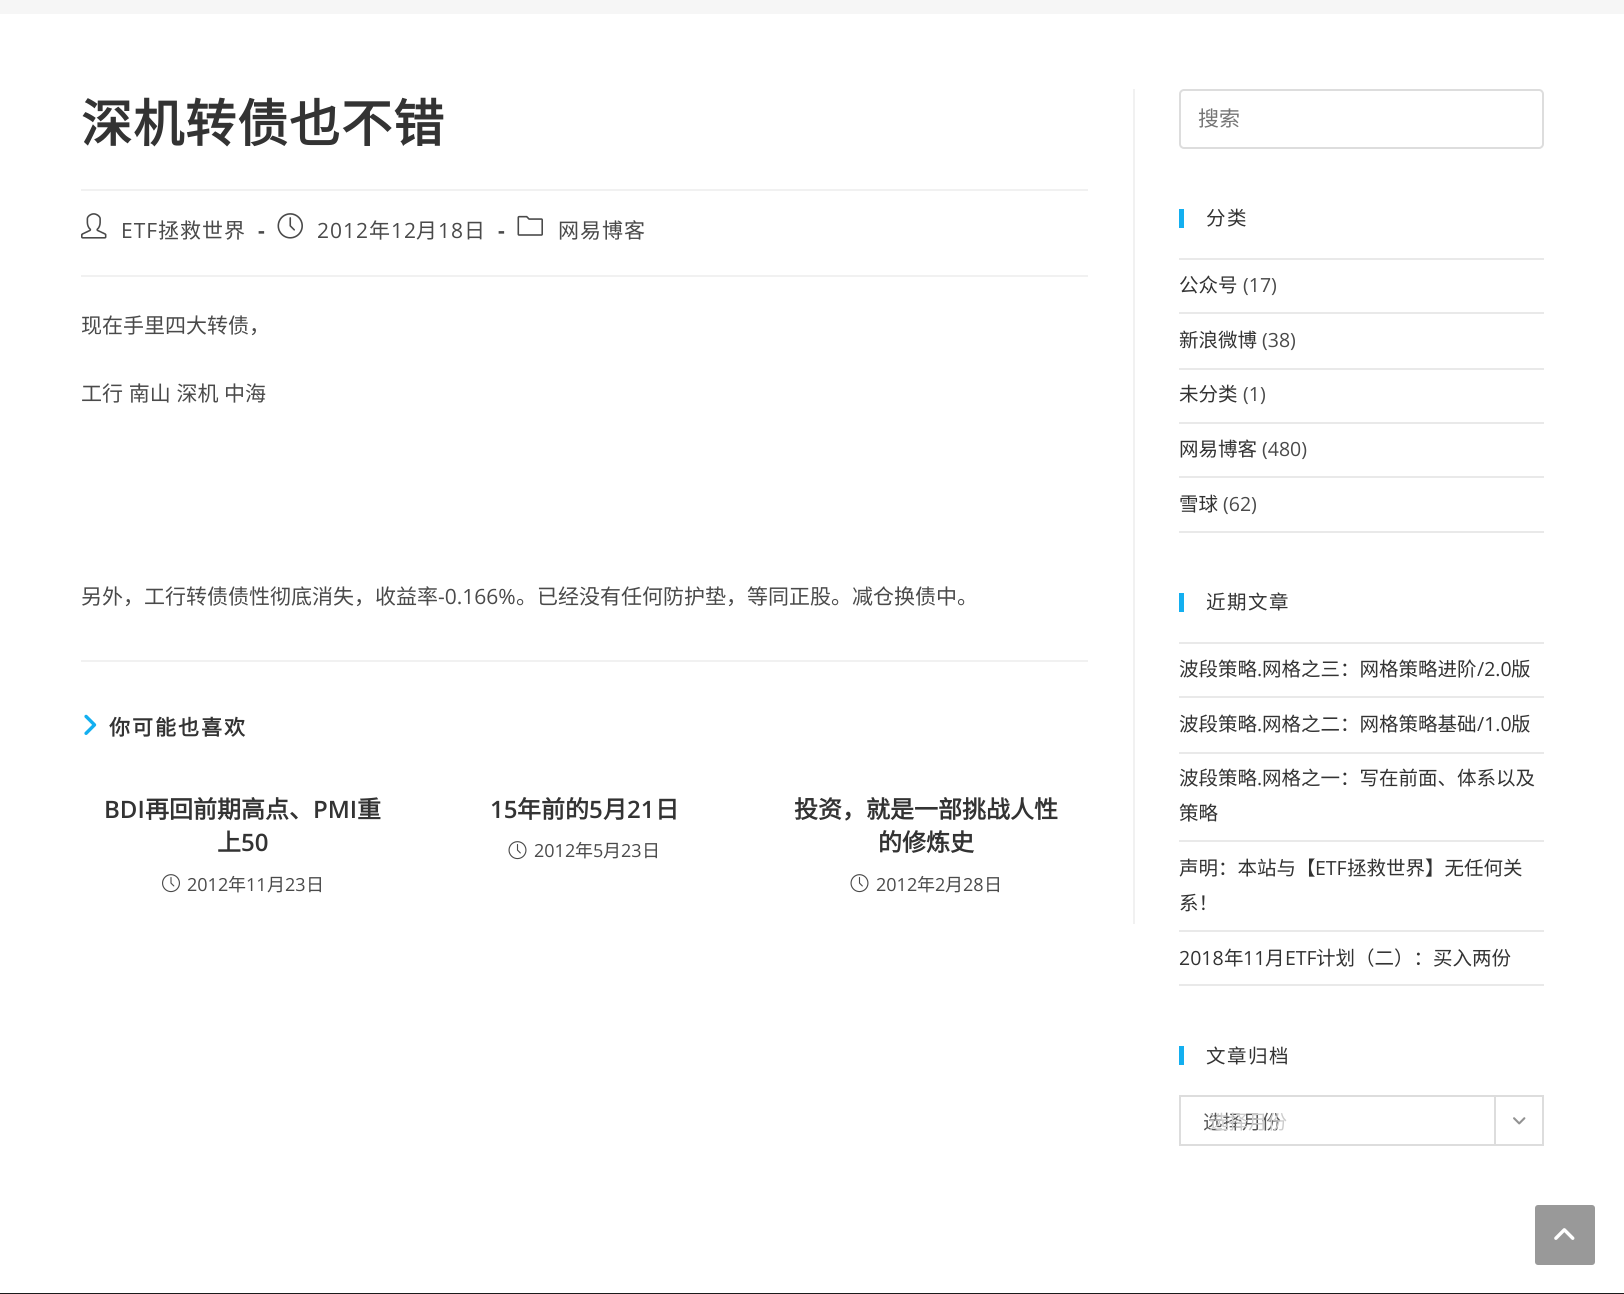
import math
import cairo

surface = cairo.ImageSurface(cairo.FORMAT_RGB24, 1624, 1294)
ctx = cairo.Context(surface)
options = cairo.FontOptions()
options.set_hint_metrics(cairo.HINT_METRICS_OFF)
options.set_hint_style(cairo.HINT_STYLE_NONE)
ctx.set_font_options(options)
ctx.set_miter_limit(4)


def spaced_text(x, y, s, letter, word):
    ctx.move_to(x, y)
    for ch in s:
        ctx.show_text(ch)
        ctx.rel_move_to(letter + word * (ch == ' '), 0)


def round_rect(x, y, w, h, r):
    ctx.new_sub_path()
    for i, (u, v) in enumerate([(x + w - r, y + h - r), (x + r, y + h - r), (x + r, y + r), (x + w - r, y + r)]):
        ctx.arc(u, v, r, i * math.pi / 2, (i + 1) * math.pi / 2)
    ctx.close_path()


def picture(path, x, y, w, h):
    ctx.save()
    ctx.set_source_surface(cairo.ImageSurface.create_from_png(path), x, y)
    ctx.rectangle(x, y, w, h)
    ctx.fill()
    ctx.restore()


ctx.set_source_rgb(1, 1, 1)
ctx.paint()
ctx.set_source_rgb(0.961, 0.961, 0.961)
ctx.rectangle(0, 0, 1624, 14)
ctx.fill()
ctx.set_source_rgb(0.945, 0.945, 0.945)
ctx.rectangle(1133, 89, 2, 835)
ctx.fill()
ctx.rectangle(81, 189, 1007, 2)
ctx.fill()
ctx.select_font_face("Noto Sans CJK SC", cairo.FONT_SLANT_NORMAL, cairo.FONT_WEIGHT_BOLD)
ctx.set_font_size(51)
ctx.set_source_rgb(0.2, 0.2, 0.2)
spaced_text(81, 142, "深机转债也不错", 1, 0)
ctx.set_source_rgb(0.945, 0.945, 0.945)
ctx.rectangle(81, 275, 1007, 2)
ctx.fill()
picture("img1.png", 81, 213, 26, 26)
ctx.select_font_face("Open Sans")
ctx.set_font_size(21)
ctx.set_source_rgb(0.29, 0.29, 0.29)
spaced_text(121, 238, "ETF", 1, 0)
ctx.select_font_face("Noto Sans CJK SC")
spaced_text(158, 238, "拯救世界", 1, 0)
ctx.select_font_face("Open Sans", cairo.FONT_SLANT_NORMAL, cairo.FONT_WEIGHT_BOLD)
spaced_text(258, 238, "-", 1, 0)
picture("img2.png", 277, 213, 26, 26)
ctx.select_font_face("Open Sans")
spaced_text(317, 238, "2012", 1, 0)
ctx.select_font_face("Noto Sans CJK SC")
spaced_text(369, 238, "年", 1, 0)
ctx.select_font_face("Open Sans")
spaced_text(391, 238, "12", 1, 0)
ctx.select_font_face("Noto Sans CJK SC")
spaced_text(416, 238, "月", 1, 0)
ctx.select_font_face("Open Sans")
spaced_text(438, 238, "18", 1, 0)
ctx.select_font_face("Noto Sans CJK SC")
spaced_text(464, 238, "日", 1, 0)
ctx.select_font_face("Open Sans", cairo.FONT_SLANT_NORMAL, cairo.FONT_WEIGHT_BOLD)
spaced_text(498, 238, "-", 1, 0)
picture("img3.png", 517, 215, 26, 21)
ctx.select_font_face("Noto Sans CJK SC")
spaced_text(558, 238, "网易博客", 1, 0)
ctx.move_to(81, 333)
ctx.show_text("现在手里四大转债，")
spaced_text(81, 401, "工行 南山 深机 中海", 0, 1)
ctx.move_to(81, 604)
ctx.show_text("另外，工行转债债性彻底消失，收益率")
ctx.select_font_face("Open Sans")
ctx.move_to(438, 604)
ctx.show_text("-0.166%")
ctx.select_font_face("Noto Sans CJK SC")
ctx.move_to(516, 604)
ctx.show_text("。已经没有任何防护垫，等同正股。减仓换债中。")
ctx.set_source_rgb(0.945, 0.945, 0.945)
ctx.rectangle(81, 660, 1007, 2)
ctx.fill()
picture("img4.png", 84, 714, 13, 21)
ctx.select_font_face("Noto Sans CJK SC", cairo.FONT_SLANT_NORMAL, cairo.FONT_WEIGHT_BOLD)
ctx.set_source_rgb(0.2, 0.2, 0.2)
spaced_text(109, 735, "你可能也喜欢", 2, 0)
ctx.select_font_face("Open Sans SemiBold")
ctx.set_font_size(24)
ctx.move_to(104, 818)
ctx.show_text("BDI")
ctx.select_font_face("Noto Sans CJK SC", cairo.FONT_SLANT_NORMAL, cairo.FONT_WEIGHT_BOLD)
ctx.move_to(145, 818)
ctx.show_text("再回前期高点、")
ctx.select_font_face("Open Sans SemiBold")
ctx.move_to(313, 818)
ctx.show_text("PMI")
ctx.select_font_face("Noto Sans CJK SC", cairo.FONT_SLANT_NORMAL, cairo.FONT_WEIGHT_BOLD)
ctx.move_to(357, 818)
ctx.show_text("重")
ctx.move_to(217, 851)
ctx.show_text("上")
ctx.select_font_face("Open Sans SemiBold")
ctx.move_to(241, 851)
ctx.show_text("50")
picture("img5.png", 162, 874, 18, 19)
ctx.select_font_face("Open Sans")
ctx.set_font_size(18)
ctx.set_source_rgb(0.29, 0.29, 0.29)
ctx.move_to(187, 891)
ctx.show_text("2012")
ctx.select_font_face("Noto Sans CJK SC")
ctx.move_to(228, 891)
ctx.show_text("年")
ctx.select_font_face("Open Sans")
ctx.move_to(246, 891)
ctx.show_text("11")
ctx.select_font_face("Noto Sans CJK SC")
ctx.move_to(267, 891)
ctx.show_text("月")
ctx.select_font_face("Open Sans")
ctx.move_to(285, 891)
ctx.show_text("23")
ctx.select_font_face("Noto Sans CJK SC")
ctx.move_to(306, 891)
ctx.show_text("日")
ctx.select_font_face("Open Sans SemiBold")
ctx.set_font_size(24)
ctx.set_source_rgb(0.2, 0.2, 0.2)
ctx.move_to(490, 818)
ctx.show_text("15")
ctx.select_font_face("Noto Sans CJK SC", cairo.FONT_SLANT_NORMAL, cairo.FONT_WEIGHT_BOLD)
ctx.move_to(517, 818)
ctx.show_text("年前的")
ctx.select_font_face("Open Sans SemiBold")
ctx.move_to(589, 818)
ctx.show_text("5")
ctx.select_font_face("Noto Sans CJK SC", cairo.FONT_SLANT_NORMAL, cairo.FONT_WEIGHT_BOLD)
ctx.move_to(603, 818)
ctx.show_text("月")
ctx.select_font_face("Open Sans SemiBold")
ctx.move_to(627, 818)
ctx.show_text("21")
ctx.select_font_face("Noto Sans CJK SC", cairo.FONT_SLANT_NORMAL, cairo.FONT_WEIGHT_BOLD)
ctx.move_to(655, 818)
ctx.show_text("日")
picture("img6.png", 508, 841, 19, 19)
ctx.select_font_face("Open Sans")
ctx.set_font_size(18)
ctx.set_source_rgb(0.29, 0.29, 0.29)
ctx.move_to(534, 857)
ctx.show_text("2012")
ctx.select_font_face("Noto Sans CJK SC")
ctx.move_to(575, 857)
ctx.show_text("年")
ctx.select_font_face("Open Sans")
ctx.move_to(593, 857)
ctx.show_text("5")
ctx.select_font_face("Noto Sans CJK SC")
ctx.move_to(603, 857)
ctx.show_text("月")
ctx.select_font_face("Open Sans")
ctx.move_to(621, 857)
ctx.show_text("23")
ctx.select_font_face("Noto Sans CJK SC")
ctx.move_to(642, 857)
ctx.show_text("日")
ctx.select_font_face("Noto Sans CJK SC", cairo.FONT_SLANT_NORMAL, cairo.FONT_WEIGHT_BOLD)
ctx.set_font_size(24)
ctx.set_source_rgb(0.2, 0.2, 0.2)
ctx.move_to(794, 818)
ctx.show_text("投资，就是一部挑战人性")
ctx.move_to(878, 851)
ctx.show_text("的修炼史")
picture("img6.png", 850, 874, 19, 19)
ctx.select_font_face("Open Sans")
ctx.set_font_size(18)
ctx.set_source_rgb(0.29, 0.29, 0.29)
ctx.move_to(876, 891)
ctx.show_text("2012")
ctx.select_font_face("Noto Sans CJK SC")
ctx.move_to(917, 891)
ctx.show_text("年")
ctx.select_font_face("Open Sans")
ctx.move_to(935, 891)
ctx.show_text("2")
ctx.select_font_face("Noto Sans CJK SC")
ctx.move_to(945, 891)
ctx.show_text("月")
ctx.select_font_face("Open Sans")
ctx.move_to(963, 891)
ctx.show_text("28")
ctx.select_font_face("Noto Sans CJK SC")
ctx.move_to(984, 891)
ctx.show_text("日")
round_rect(1180, 90, 363, 58, 4)
ctx.set_source_rgb(0.867, 0.867, 0.867)
ctx.stroke()
ctx.set_font_size(21)
ctx.set_source_rgb(0.459, 0.459, 0.459)
ctx.move_to(1198, 126)
ctx.show_text("搜索")
ctx.set_source_rgb(0.075, 0.686, 0.941)
ctx.rectangle(1179, 209, 5, 19)
ctx.fill()
ctx.set_font_size(19.5)
ctx.set_source_rgb(0.2, 0.2, 0.2)
spaced_text(1206, 225, "分类", 1.5, 0)
ctx.set_source_rgb(0.914, 0.914, 0.914)
ctx.rectangle(1179, 258, 365, 2)
ctx.fill()
ctx.rectangle(1179, 312, 365, 2)
ctx.fill()
ctx.set_source_rgb(0.2, 0.2, 0.2)
ctx.move_to(1179, 292)
ctx.show_text("公众号")
ctx.select_font_face("Open Sans")
ctx.set_source_rgb(0.29, 0.29, 0.29)
ctx.move_to(1243, 292)
ctx.show_text("(17)")
ctx.set_source_rgb(0.914, 0.914, 0.914)
ctx.rectangle(1179, 368, 365, 2)
ctx.fill()
ctx.select_font_face("Noto Sans CJK SC")
ctx.set_source_rgb(0.2, 0.2, 0.2)
ctx.move_to(1179, 347)
ctx.show_text("新浪微博")
ctx.select_font_face("Open Sans")
ctx.set_source_rgb(0.29, 0.29, 0.29)
ctx.move_to(1262, 347)
ctx.show_text("(38)")
ctx.set_source_rgb(0.914, 0.914, 0.914)
ctx.rectangle(1179, 422, 365, 2)
ctx.fill()
ctx.select_font_face("Noto Sans CJK SC")
ctx.set_source_rgb(0.2, 0.2, 0.2)
ctx.move_to(1179, 401)
ctx.show_text("未分类")
ctx.select_font_face("Open Sans")
ctx.set_source_rgb(0.29, 0.29, 0.29)
ctx.move_to(1243, 401)
ctx.show_text("(1)")
ctx.set_source_rgb(0.914, 0.914, 0.914)
ctx.rectangle(1179, 476, 365, 2)
ctx.fill()
ctx.select_font_face("Noto Sans CJK SC")
ctx.set_source_rgb(0.2, 0.2, 0.2)
ctx.move_to(1179, 456)
ctx.show_text("网易博客")
ctx.select_font_face("Open Sans")
ctx.set_source_rgb(0.29, 0.29, 0.29)
ctx.move_to(1262, 456)
ctx.show_text("(480)")
ctx.set_source_rgb(0.914, 0.914, 0.914)
ctx.rectangle(1179, 531, 365, 2)
ctx.fill()
ctx.select_font_face("Noto Sans CJK SC")
ctx.set_source_rgb(0.2, 0.2, 0.2)
ctx.move_to(1179, 511)
ctx.show_text("雪球")
ctx.select_font_face("Open Sans")
ctx.set_source_rgb(0.29, 0.29, 0.29)
ctx.move_to(1223, 511)
ctx.show_text("(62)")
ctx.set_source_rgb(0.075, 0.686, 0.941)
ctx.rectangle(1179, 593, 5, 19)
ctx.fill()
ctx.select_font_face("Noto Sans CJK SC")
ctx.set_source_rgb(0.2, 0.2, 0.2)
spaced_text(1206, 609, "近期文章", 1.5, 0)
ctx.set_source_rgb(0.914, 0.914, 0.914)
ctx.rectangle(1179, 642, 365, 2)
ctx.fill()
ctx.rectangle(1179, 696, 365, 2)
ctx.fill()
ctx.set_source_rgb(0.2, 0.2, 0.2)
ctx.move_to(1179, 676)
ctx.show_text("波段策略")
ctx.select_font_face("Open Sans")
ctx.move_to(1257, 676)
ctx.show_text(".")
ctx.select_font_face("Noto Sans CJK SC")
ctx.move_to(1262, 676)
ctx.show_text("网格之三：网格策略进阶")
ctx.select_font_face("Open Sans")
ctx.move_to(1477, 676)
ctx.show_text("/2.0")
ctx.select_font_face("Noto Sans CJK SC")
ctx.move_to(1511, 676)
ctx.show_text("版")
ctx.set_source_rgb(0.914, 0.914, 0.914)
ctx.rectangle(1179, 752, 365, 2)
ctx.fill()
ctx.set_source_rgb(0.2, 0.2, 0.2)
ctx.move_to(1179, 731)
ctx.show_text("波段策略")
ctx.select_font_face("Open Sans")
ctx.move_to(1257, 731)
ctx.show_text(".")
ctx.select_font_face("Noto Sans CJK SC")
ctx.move_to(1262, 731)
ctx.show_text("网格之二：网格策略基础")
ctx.select_font_face("Open Sans")
ctx.move_to(1477, 731)
ctx.show_text("/1.0")
ctx.select_font_face("Noto Sans CJK SC")
ctx.move_to(1511, 731)
ctx.show_text("版")
ctx.set_source_rgb(0.914, 0.914, 0.914)
ctx.rectangle(1179, 840, 365, 2)
ctx.fill()
ctx.set_source_rgb(0.2, 0.2, 0.2)
ctx.move_to(1179, 785)
ctx.show_text("波段策略")
ctx.select_font_face("Open Sans")
ctx.move_to(1257, 785)
ctx.show_text(".")
ctx.select_font_face("Noto Sans CJK SC")
ctx.move_to(1262, 785)
ctx.show_text("网格之一：写在前面、体系以及")
ctx.move_to(1179, 820)
ctx.show_text("策略")
ctx.set_source_rgb(0.914, 0.914, 0.914)
ctx.rectangle(1179, 930, 365, 2)
ctx.fill()
ctx.set_source_rgb(0.2, 0.2, 0.2)
ctx.move_to(1179, 875)
ctx.show_text("声明：本站与【")
ctx.select_font_face("Open Sans")
ctx.move_to(1315, 875)
ctx.show_text("ETF")
ctx.select_font_face("Noto Sans CJK SC")
ctx.move_to(1347, 875)
ctx.show_text("拯救世界】无任何关")
ctx.move_to(1179, 910)
ctx.show_text("系！")
ctx.set_source_rgb(0.914, 0.914, 0.914)
ctx.rectangle(1179, 984, 365, 2)
ctx.fill()
ctx.select_font_face("Open Sans")
ctx.set_source_rgb(0.2, 0.2, 0.2)
ctx.move_to(1179, 965)
ctx.show_text("2018")
ctx.select_font_face("Noto Sans CJK SC")
ctx.move_to(1224, 965)
ctx.show_text("年")
ctx.select_font_face("Open Sans")
ctx.move_to(1243, 965)
ctx.show_text("11")
ctx.select_font_face("Noto Sans CJK SC")
ctx.move_to(1265, 965)
ctx.show_text("月")
ctx.select_font_face("Open Sans")
ctx.move_to(1285, 965)
ctx.show_text("ETF")
ctx.select_font_face("Noto Sans CJK SC")
ctx.move_to(1316, 965)
ctx.show_text("计划（二）：买入两份")
ctx.set_source_rgb(0.075, 0.686, 0.941)
ctx.rectangle(1179, 1046, 5, 19)
ctx.fill()
ctx.set_source_rgb(0.2, 0.2, 0.2)
spaced_text(1206, 1063, "文章归档", 1.5, 0)
ctx.rectangle(1180, 1096, 363, 49)
ctx.set_source_rgb(0.867, 0.867, 0.867)
ctx.stroke()
ctx.set_source_rgb(0.333, 0.333, 0.333)
ctx.move_to(1203, 1129)
ctx.show_text("选择月份")
ctx.set_source_rgb(0.867, 0.867, 0.867)
ctx.rectangle(1494, 1097, 2, 48)
ctx.fill()
picture("img7.png", 1513, 1117, 13, 8)
ctx.set_source_rgb(0.8, 0.8, 0.8)
ctx.move_to(1209, 1129)
ctx.show_text("选择月份")
ctx.set_source_rgb(0.106, 0.106, 0.106)
ctx.rectangle(0, 1293, 1624, 1)
ctx.fill()
ctx.set_source_rgb(0.6, 0.6, 0.6)
round_rect(1535, 1205, 60, 60, 3)
ctx.fill()
picture("img8.png", 1554, 1228, 21, 12)
surface.write_to_png("page.png")
